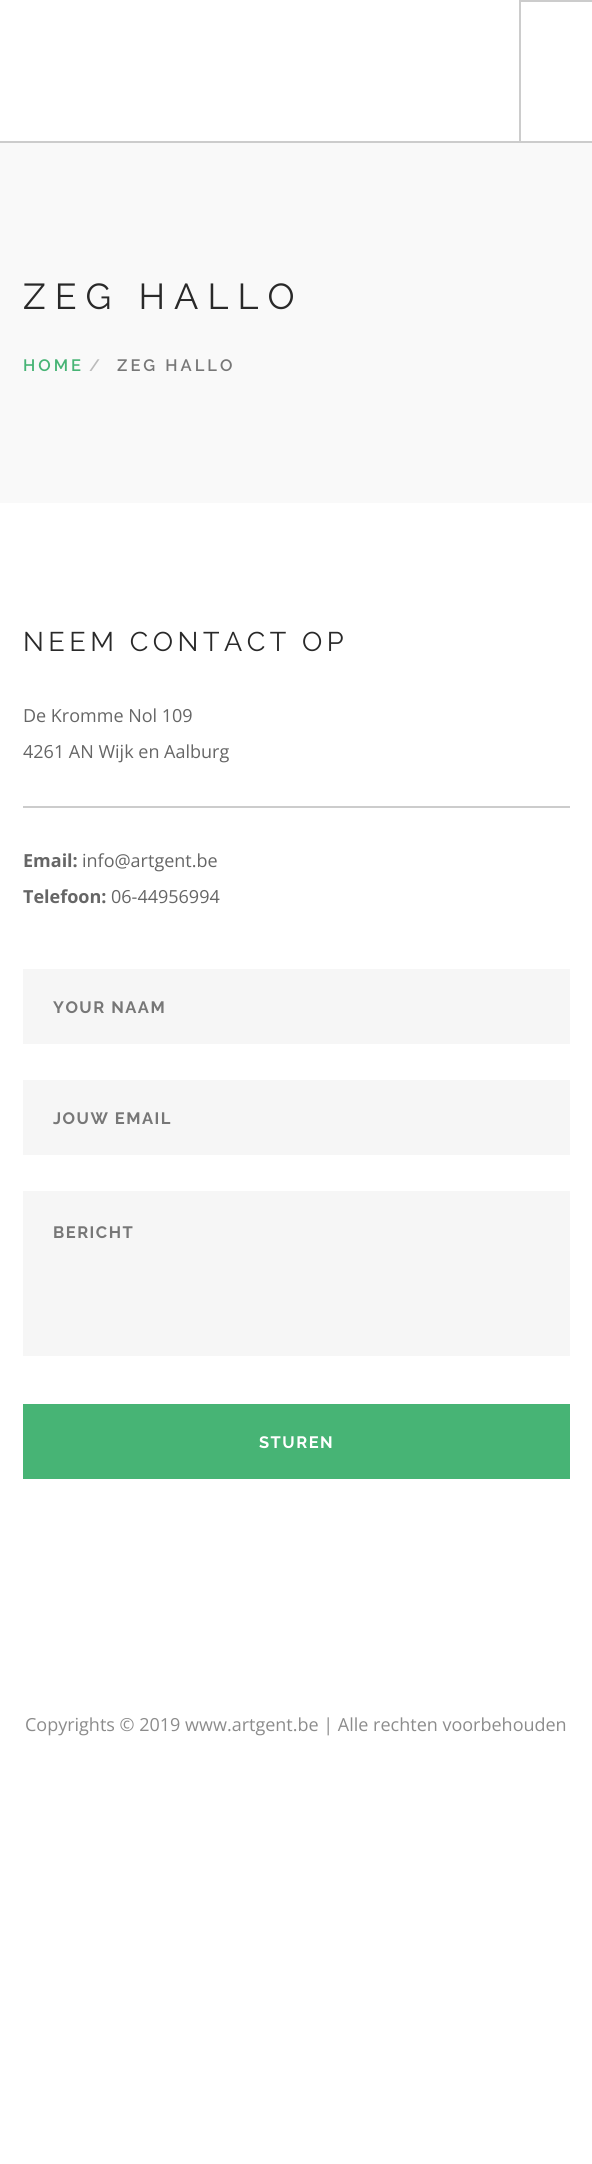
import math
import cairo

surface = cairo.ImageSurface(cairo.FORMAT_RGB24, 592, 2164)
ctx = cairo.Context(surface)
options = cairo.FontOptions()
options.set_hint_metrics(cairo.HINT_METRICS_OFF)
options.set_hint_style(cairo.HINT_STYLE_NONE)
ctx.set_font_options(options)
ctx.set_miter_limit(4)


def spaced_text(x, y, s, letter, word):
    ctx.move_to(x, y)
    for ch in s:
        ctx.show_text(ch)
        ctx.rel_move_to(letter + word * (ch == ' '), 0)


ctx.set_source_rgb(1, 1, 1)
ctx.paint()
ctx.set_source_rgb(0.8, 0.8, 0.8)
ctx.rectangle(0, 141, 592, 2)
ctx.fill()
ctx.rectangle(519, 0, 73, 2)
ctx.fill()
ctx.rectangle(519, 0, 2, 141)
ctx.fill()
ctx.set_source_rgb(0.973, 0.973, 0.973)
ctx.rectangle(0, 143, 592, 360)
ctx.fill()
ctx.select_font_face("Raleway")
ctx.set_font_size(36)
ctx.set_source_rgb(0.161, 0.161, 0.161)
spaced_text(23, 309, "ZEG HALLO", 9, 0)
ctx.select_font_face("Raleway SemiBold")
ctx.set_font_size(16.5)
ctx.set_source_rgb(0.278, 0.706, 0.459)
spaced_text(23, 371, "HOME", 3, 0)
ctx.set_source_rgb(0.733, 0.733, 0.733)
spaced_text(89, 371, "/", 3, 0)
ctx.set_source_rgb(0.467, 0.467, 0.467)
spaced_text(117, 371, "ZEG HALLO", 3, 0)
ctx.select_font_face("Raleway")
ctx.set_font_size(27)
ctx.set_source_rgb(0.161, 0.161, 0.161)
spaced_text(23, 651, "NEEM CONTACT OP", 4.5, 0)
ctx.select_font_face("Open Sans")
ctx.set_font_size(18)
ctx.set_source_rgb(0.4, 0.4, 0.4)
ctx.move_to(23, 722)
ctx.show_text("De Kromme Nol 109")
ctx.move_to(23, 758)
ctx.show_text("4261 AN Wijk en Aalburg")
ctx.set_source_rgb(0.8, 0.8, 0.8)
ctx.rectangle(23, 806, 547, 2)
ctx.fill()
ctx.select_font_face("Open Sans", cairo.FONT_SLANT_NORMAL, cairo.FONT_WEIGHT_BOLD)
ctx.set_source_rgb(0.4, 0.4, 0.4)
ctx.move_to(23, 867)
ctx.show_text("Email:")
ctx.select_font_face("Open Sans")
ctx.move_to(82, 867)
ctx.show_text("info@artgent.be")
ctx.select_font_face("Open Sans", cairo.FONT_SLANT_NORMAL, cairo.FONT_WEIGHT_BOLD)
ctx.move_to(23, 903)
ctx.show_text("Telefoon:")
ctx.select_font_face("Open Sans")
ctx.move_to(111, 903)
ctx.show_text("06-44956994")
ctx.set_source_rgb(0.961, 0.961, 0.961)
ctx.rectangle(23, 969, 547, 75)
ctx.fill()
ctx.select_font_face("Raleway", cairo.FONT_SLANT_NORMAL, cairo.FONT_WEIGHT_BOLD)
ctx.set_font_size(16.5)
ctx.set_source_rgb(0.467, 0.467, 0.467)
spaced_text(53, 1013, "YOUR NAAM", 1.5, 0)
ctx.set_source_rgb(0.961, 0.961, 0.961)
ctx.rectangle(23, 1080, 547, 75)
ctx.fill()
ctx.set_source_rgb(0.467, 0.467, 0.467)
spaced_text(53, 1124, "JOUW EMAIL", 1.5, 0)
ctx.set_source_rgb(0.961, 0.961, 0.961)
ctx.rectangle(23, 1191, 547, 165)
ctx.fill()
ctx.set_source_rgb(0.467, 0.467, 0.467)
spaced_text(53, 1238, "BERICHT", 1.5, 0)
ctx.set_source_rgb(0.278, 0.706, 0.459)
ctx.rectangle(23, 1404, 547, 75)
ctx.fill()
ctx.set_source_rgb(1, 1, 1)
spaced_text(259, 1448, "STUREN", 1.5, 0)
ctx.select_font_face("Open Sans")
ctx.set_font_size(18)
ctx.set_source_rgb(0.549, 0.549, 0.549)
ctx.move_to(25, 1731)
ctx.show_text("Copyrights © 2019 www.artgent.be | Alle rechten voorbehouden")
surface.write_to_png("page.png")
